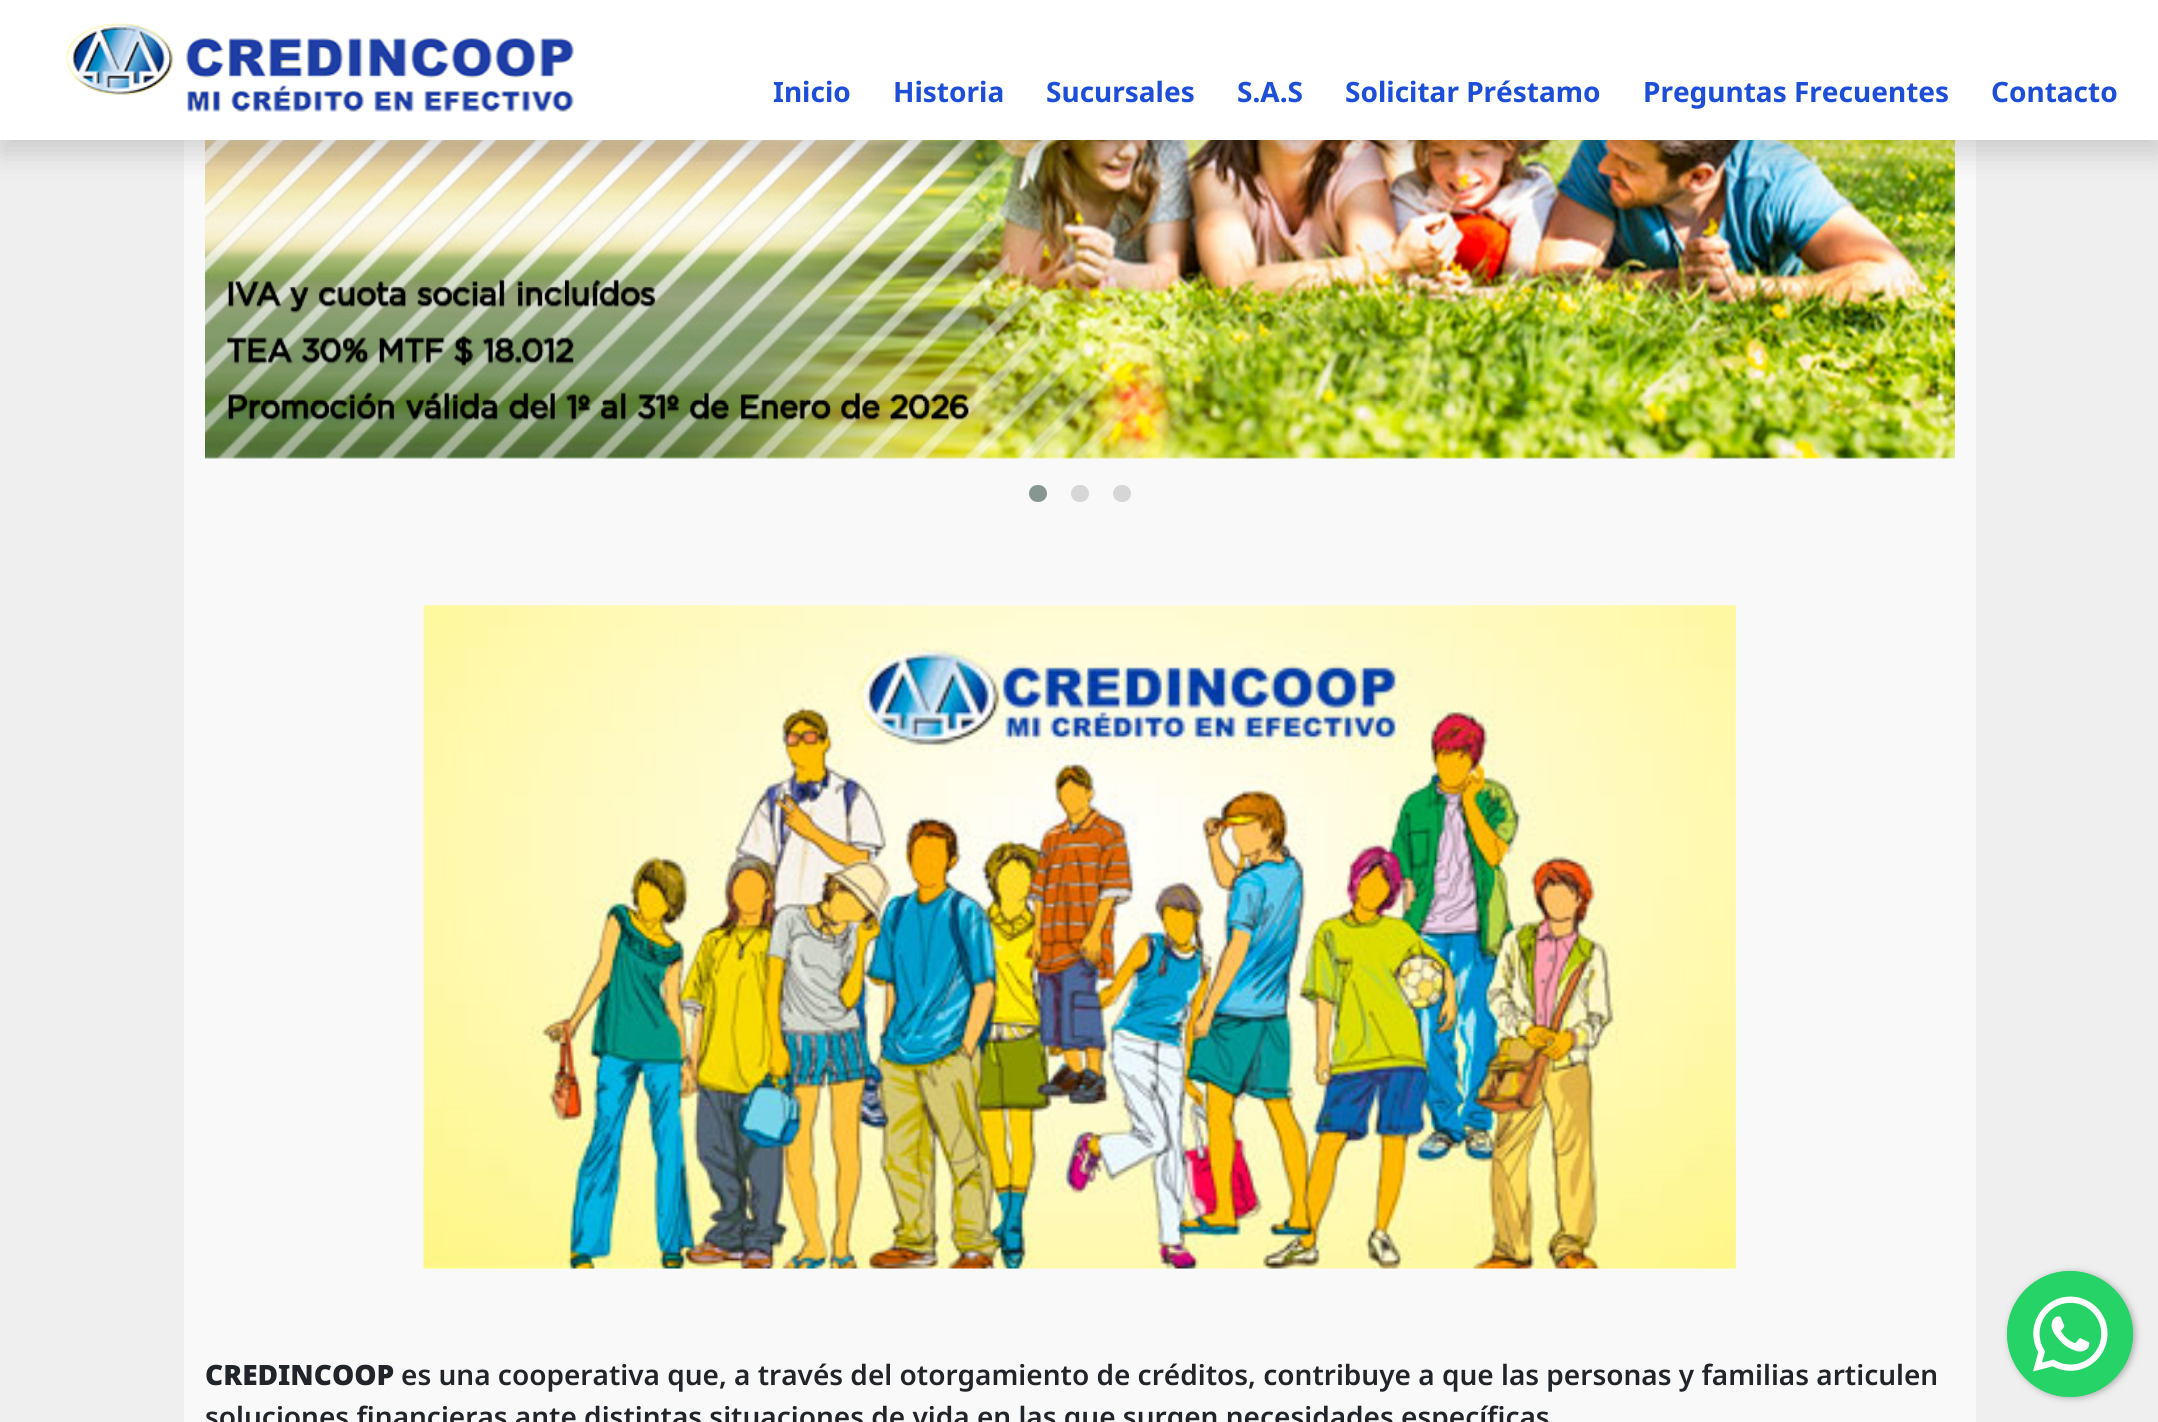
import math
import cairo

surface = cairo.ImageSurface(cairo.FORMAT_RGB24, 2158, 1422)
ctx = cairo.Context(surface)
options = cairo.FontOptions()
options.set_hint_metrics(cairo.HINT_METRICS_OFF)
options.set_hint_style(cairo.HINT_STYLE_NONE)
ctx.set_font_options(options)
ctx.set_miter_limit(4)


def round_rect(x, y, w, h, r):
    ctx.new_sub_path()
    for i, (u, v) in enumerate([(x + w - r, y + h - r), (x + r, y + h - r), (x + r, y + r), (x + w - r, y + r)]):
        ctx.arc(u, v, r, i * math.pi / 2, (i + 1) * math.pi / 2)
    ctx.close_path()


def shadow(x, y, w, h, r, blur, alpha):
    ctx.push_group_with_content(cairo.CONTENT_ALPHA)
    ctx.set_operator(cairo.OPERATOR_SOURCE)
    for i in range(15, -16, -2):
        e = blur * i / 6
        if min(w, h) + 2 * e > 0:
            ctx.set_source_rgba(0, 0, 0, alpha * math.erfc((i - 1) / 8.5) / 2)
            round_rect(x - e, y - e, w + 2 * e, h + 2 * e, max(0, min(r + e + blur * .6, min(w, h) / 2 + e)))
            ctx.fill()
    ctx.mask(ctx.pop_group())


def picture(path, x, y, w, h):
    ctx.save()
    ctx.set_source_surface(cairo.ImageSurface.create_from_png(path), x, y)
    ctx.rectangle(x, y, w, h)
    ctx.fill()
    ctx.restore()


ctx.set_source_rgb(0.937, 0.937, 0.937)
ctx.paint()
ctx.set_source_rgb(0.973, 0.976, 0.98)
ctx.rectangle(184, 140, 1792, 1282)
ctx.fill()
picture("img2.png", 205, 140, 1750, 319)
ctx.set_source_rgb(0, 0, 0)
shadow(0, 14, 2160, 140, 0, 14, 0.15)
ctx.set_source_rgb(1, 1, 1)
ctx.rectangle(0, 0, 2158, 140)
ctx.fill()
picture("img1.png", 66, 22, 508, 90)
ctx.select_font_face("Noto Sans", cairo.FONT_SLANT_NORMAL, cairo.FONT_WEIGHT_BOLD)
ctx.set_font_size(28)
ctx.set_source_rgb(0.114, 0.306, 0.847)
ctx.move_to(773, 102)
ctx.show_text("Inicio")
ctx.move_to(893, 102)
ctx.show_text("Historia")
ctx.move_to(1046, 102)
ctx.show_text("Sucursales")
ctx.move_to(1237, 102)
ctx.show_text("S.A.S")
ctx.move_to(1345, 102)
ctx.show_text("Solicitar Préstamo")
ctx.move_to(1643, 102)
ctx.show_text("Preguntas Frecuentes")
ctx.move_to(1991, 102)
ctx.show_text("Contacto")
ctx.set_source_rgb(0.525, 0.592, 0.569)
round_rect(1029, 485, 18, 17, 8.5)
ctx.fill()
ctx.set_source_rgb(0.839, 0.839, 0.839)
round_rect(1071, 485, 18, 17, 8.5)
ctx.fill()
round_rect(1113, 485, 18, 17, 8.5)
ctx.fill()
picture("img3.png", 423, 605, 1313, 664)
ctx.select_font_face("Noto Sans Black")
ctx.set_source_rgb(0.129, 0.145, 0.161)
ctx.move_to(205, 1385)
ctx.show_text("CREDINCOOP")
ctx.select_font_face("Noto Sans SemiBold")
ctx.move_to(401, 1385)
ctx.show_text("es una cooperativa que, a través del otorgamiento de créditos, contribuye a que las personas y familias articulen")
ctx.move_to(205, 1427)
ctx.show_text("soluciones financieras ante distintas situaciones de vida en las que surgen necesidades específicas")
ctx.set_source_rgb(0.235, 0.235, 0.235)
shadow(2009, 1272, 126, 126, 63, 3.5, 0.4)
ctx.set_source_rgb(0.145, 0.827, 0.4)
ctx.arc(2070, 1334, 63, 0, 2 * math.pi)
ctx.fill()
picture("img4.png", 2007, 1271, 126, 126)
surface.write_to_png("page.png")
